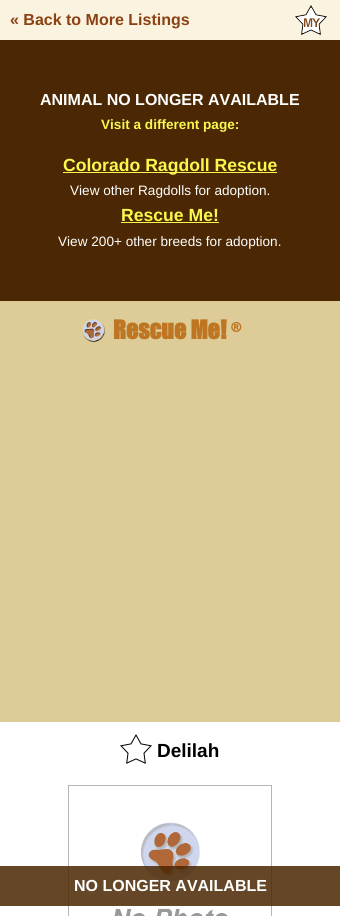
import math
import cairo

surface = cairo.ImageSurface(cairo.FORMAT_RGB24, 340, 916)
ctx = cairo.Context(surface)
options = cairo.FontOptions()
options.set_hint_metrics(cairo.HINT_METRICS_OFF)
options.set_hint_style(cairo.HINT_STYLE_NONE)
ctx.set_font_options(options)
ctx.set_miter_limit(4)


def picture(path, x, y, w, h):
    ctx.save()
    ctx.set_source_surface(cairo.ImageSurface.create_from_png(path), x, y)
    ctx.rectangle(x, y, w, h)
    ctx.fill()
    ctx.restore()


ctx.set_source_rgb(0.867, 0.8, 0.596)
ctx.paint()
ctx.set_source_rgb(0.973, 0.953, 0.878)
ctx.rectangle(0, 0, 340, 40)
ctx.fill()
ctx.select_font_face("Liberation Sans", cairo.FONT_SLANT_NORMAL, cairo.FONT_WEIGHT_BOLD)
ctx.set_font_size(16)
ctx.set_source_rgb(0.545, 0.255, 0.071)
ctx.move_to(10, 25)
ctx.show_text("« Back to More Listings")
picture("img1.png", 295, 5, 32, 30)
ctx.set_source_rgb(0.294, 0.153, 0.012)
ctx.rectangle(0, 40, 340, 261)
ctx.fill()
ctx.set_source_rgb(1, 1, 1)
ctx.move_to(40, 105)
ctx.show_text("ANIMAL NO LONGER AVAILABLE")
ctx.set_font_size(13.6)
ctx.set_source_rgb(0.976, 0.969, 0.302)
ctx.move_to(101, 129)
ctx.show_text("Visit a different page:")
ctx.rectangle(63, 172, 214, 1)
ctx.fill()
ctx.set_font_size(17.6)
ctx.move_to(63, 171)
ctx.show_text("Colorado Ragdoll Rescue")
ctx.select_font_face("Liberation Sans")
ctx.set_font_size(13.6)
ctx.set_source_rgb(1, 1, 1)
ctx.move_to(70, 195)
ctx.show_text("View other Ragdolls for adoption.")
ctx.select_font_face("Liberation Sans", cairo.FONT_SLANT_NORMAL, cairo.FONT_WEIGHT_BOLD)
ctx.set_font_size(17.6)
ctx.set_source_rgb(0.976, 0.969, 0.302)
ctx.move_to(121, 221)
ctx.show_text("Rescue Me!")
ctx.rectangle(121, 222, 98, 1)
ctx.fill()
ctx.select_font_face("Liberation Sans")
ctx.set_font_size(13.6)
ctx.set_source_rgb(1, 1, 1)
ctx.move_to(58, 246)
ctx.show_text("View 200+ other breeds for adoption.")
picture("img2.png", 82, 319, 23, 24)
ctx.select_font_face("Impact", cairo.FONT_SLANT_NORMAL, cairo.FONT_WEIGHT_BOLD)
ctx.set_font_size(24)
ctx.set_source_rgb(0.745, 0.463, 0.133)
ctx.move_to(113, 339)
ctx.show_text("Rescue Me!")
ctx.set_font_size(13)
ctx.move_to(231, 332)
ctx.show_text("®")
ctx.set_source_rgb(1, 1, 1)
ctx.rectangle(0, 722, 340, 194)
ctx.fill()
picture("img3.png", 120, 734, 32, 30)
ctx.select_font_face("Liberation Sans", cairo.FONT_SLANT_NORMAL, cairo.FONT_WEIGHT_BOLD)
ctx.set_font_size(19)
ctx.set_source_rgb(0, 0, 0)
ctx.move_to(157, 757)
ctx.show_text("Delilah")
picture("img4.png", 68, 785, 204, 131)
ctx.set_source_rgba(0.294, 0.153, 0.012, 0.85)
ctx.rectangle(0, 866, 340, 40)
ctx.fill()
ctx.set_font_size(16)
ctx.set_source_rgb(1, 1, 1)
ctx.move_to(74, 891)
ctx.show_text("NO LONGER AVAILABLE")
surface.write_to_png("page.png")
